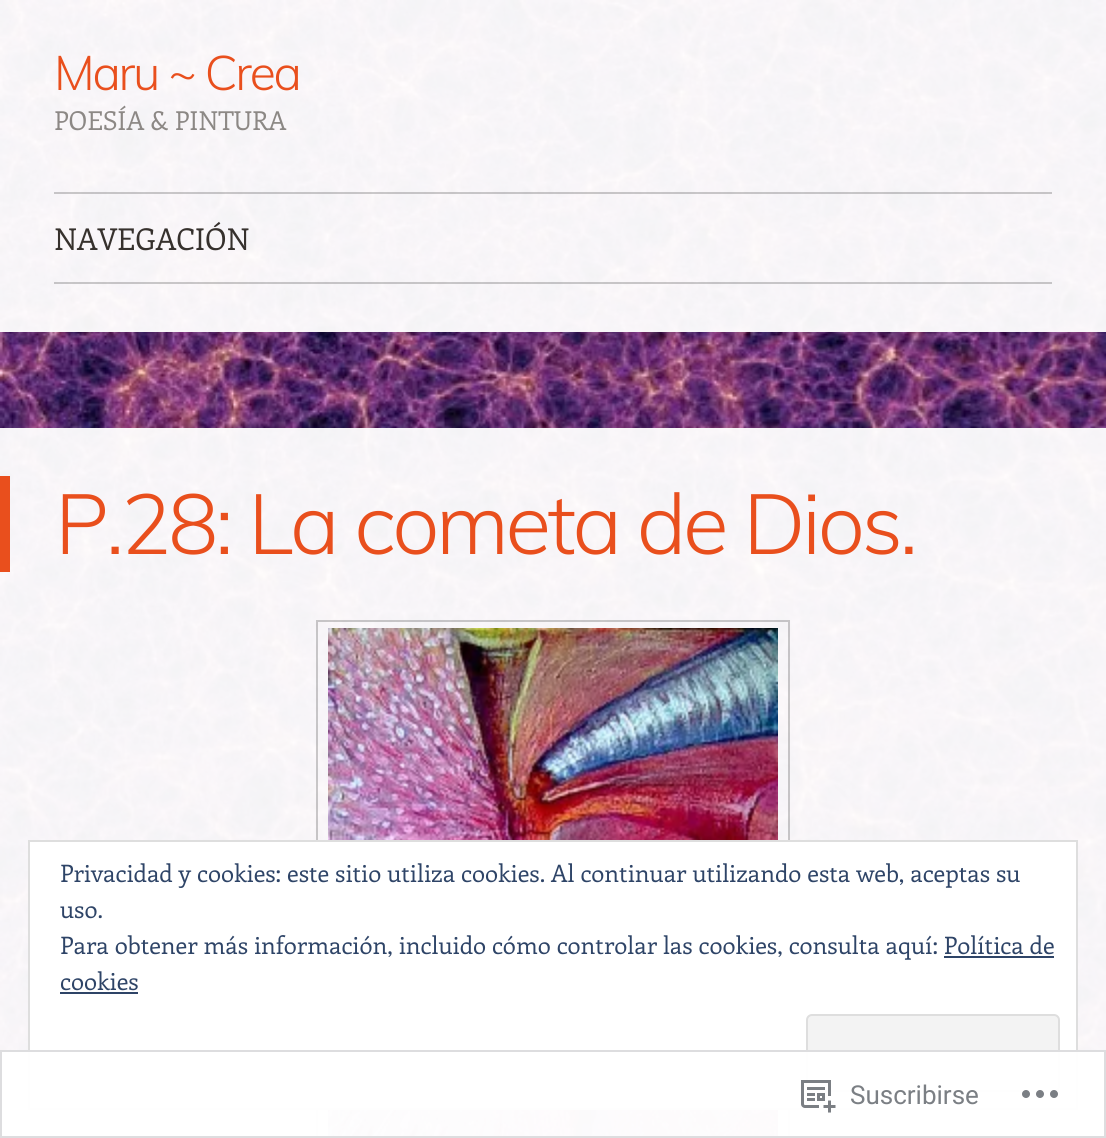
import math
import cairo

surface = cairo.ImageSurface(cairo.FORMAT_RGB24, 1106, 1138)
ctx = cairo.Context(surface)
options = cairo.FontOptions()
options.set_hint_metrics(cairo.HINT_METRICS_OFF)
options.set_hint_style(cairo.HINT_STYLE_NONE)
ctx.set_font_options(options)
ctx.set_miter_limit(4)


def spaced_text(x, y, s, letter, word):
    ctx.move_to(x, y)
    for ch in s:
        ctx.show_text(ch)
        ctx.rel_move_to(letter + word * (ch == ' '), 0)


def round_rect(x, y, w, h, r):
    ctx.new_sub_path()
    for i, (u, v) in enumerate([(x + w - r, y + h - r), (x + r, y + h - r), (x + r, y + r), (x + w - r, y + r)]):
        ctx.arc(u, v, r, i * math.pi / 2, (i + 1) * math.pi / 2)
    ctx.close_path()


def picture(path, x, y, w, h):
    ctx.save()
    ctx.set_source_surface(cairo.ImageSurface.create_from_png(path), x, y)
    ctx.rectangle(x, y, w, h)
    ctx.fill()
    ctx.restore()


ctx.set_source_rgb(1, 1, 1)
ctx.paint()
picture("img1.png", 0, 0, 1106, 1138)
ctx.set_source_rgba(1, 1, 1, 0.95)
ctx.rectangle(0, 0, 1106, 332)
ctx.fill()
ctx.select_font_face("Muli Light")
ctx.set_font_size(48)
ctx.set_source_rgb(0.914, 0.31, 0.114)
spaced_text(54, 90, "Maru ~ Crea", -2.25, 0)
ctx.select_font_face("Enriqueta")
ctx.set_font_size(26)
ctx.set_source_rgb(0.549, 0.533, 0.522)
ctx.move_to(54, 130)
ctx.show_text("POESÍA & PINTURA")
ctx.set_source_rgba(0, 0, 0, 0.2)
ctx.rectangle(54, 192, 998, 2)
ctx.fill()
ctx.rectangle(54, 282, 998, 2)
ctx.fill()
ctx.set_font_size(30)
ctx.set_source_rgb(0.212, 0.192, 0.176)
ctx.move_to(54, 250)
ctx.show_text("NAVEGACIÓN")
ctx.set_source_rgba(1, 1, 1, 0.95)
ctx.rectangle(0, 428, 1106, 710)
ctx.fill()
ctx.set_source_rgb(0.914, 0.31, 0.114)
ctx.rectangle(0, 476, 10, 96)
ctx.fill()
ctx.select_font_face("Muli Light")
ctx.set_font_size(84)
spaced_text(55, 554, "P.28: La cometa de Dios.", -3.4, 0)
ctx.rectangle(317, 621, 472, 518)
ctx.set_source_rgba(0, 0, 0, 0.2)
ctx.stroke()
picture("img2.png", 328, 628, 450, 510)
ctx.set_source_rgb(1, 1, 1)
ctx.rectangle(29, 841, 1048, 268)
ctx.fill_preserve()
ctx.set_source_rgb(0.871, 0.871, 0.871)
ctx.stroke()
ctx.select_font_face("Enriqueta")
ctx.set_font_size(24)
ctx.set_source_rgb(0.18, 0.267, 0.404)
ctx.move_to(60, 882)
ctx.show_text("Privacidad y cookies: este sitio utiliza cookies. Al continuar utilizando esta web, aceptas su")
ctx.move_to(60, 918)
ctx.show_text("uso.")
ctx.move_to(60, 954)
ctx.show_text("Para obtener más información, incluido cómo controlar las cookies, consulta aquí: Política de")
ctx.move_to(60, 990)
ctx.show_text("cookies")
ctx.rectangle(944, 956, 110, 2)
ctx.fill()
ctx.rectangle(60, 992, 78, 2)
ctx.fill()
ctx.set_source_rgb(0.953, 0.953, 0.953)
round_rect(807, 1015, 252, 76, 5)
ctx.fill_preserve()
ctx.set_source_rgb(0.871, 0.871, 0.871)
ctx.stroke()
ctx.set_source_rgba(1, 1, 1, 0.98)
ctx.rectangle(0, 1050, 1106, 88)
ctx.fill()
ctx.rectangle(1, 1051, 1104, 86)
ctx.set_source_rgba(0.863, 0.863, 0.871, 0.98)
ctx.stroke()
picture("img3.png", 801, 1080, 35, 33)
ctx.select_font_face("Roboto")
ctx.set_font_size(26)
ctx.set_source_rgb(0.482, 0.498, 0.518)
ctx.move_to(850, 1104)
ctx.show_text("Suscribirse")
picture("img4.png", 1022, 1090, 36, 8)
surface.write_to_png("page.png")
